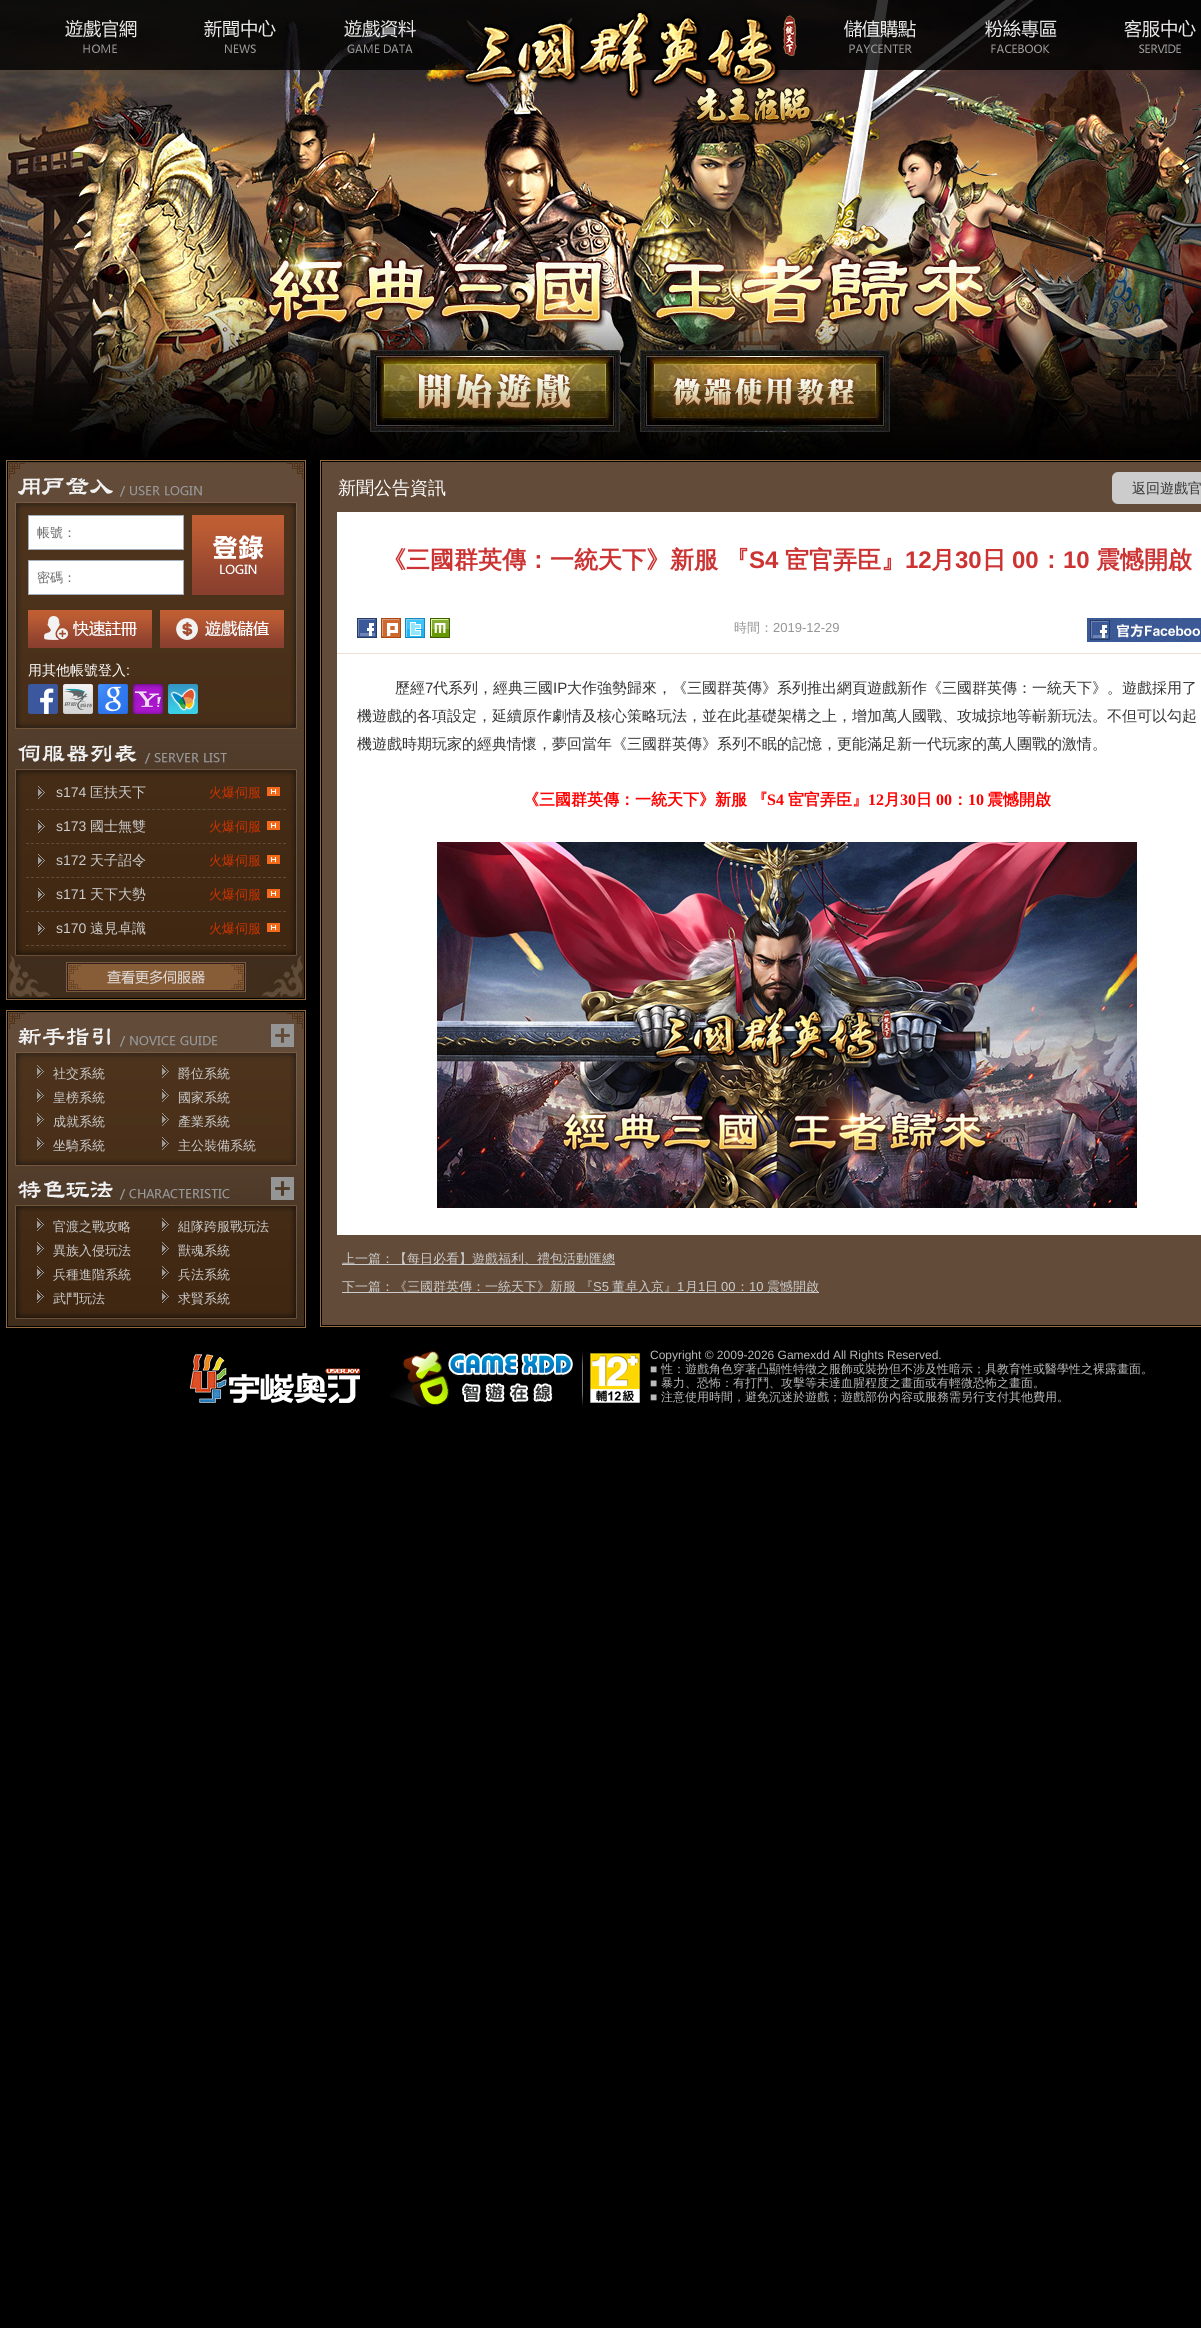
import math
import cairo

surface = cairo.ImageSurface(cairo.FORMAT_RGB24, 1201, 2328)
ctx = cairo.Context(surface)
options = cairo.FontOptions()
options.set_hint_metrics(cairo.HINT_METRICS_OFF)
options.set_hint_style(cairo.HINT_STYLE_NONE)
ctx.set_font_options(options)
ctx.set_miter_limit(4)


def round_rect(x, y, w, h, r):
    ctx.new_sub_path()
    for i, (u, v) in enumerate([(x + w - r, y + h - r), (x + r, y + h - r), (x + r, y + r), (x + w - r, y + r)]):
        ctx.arc(u, v, r, i * math.pi / 2, (i + 1) * math.pi / 2)
    ctx.close_path()


def picture(path, x, y, w, h):
    ctx.save()
    ctx.set_source_surface(cairo.ImageSurface.create_from_png(path), x, y)
    ctx.rectangle(x, y, w, h)
    ctx.fill()
    ctx.restore()


ctx.set_source_rgb(0, 0, 0)
ctx.paint()
picture("img1.png", 0, 0, 1201, 458)
picture("img2.png", 0, 0, 1201, 127)
picture("img3.png", 65, 19, 72, 34)
picture("img4.png", 204, 19, 72, 34)
picture("img5.png", 344, 20, 72, 33)
picture("img6.png", 844, 20, 72, 33)
picture("img7.png", 985, 20, 72, 33)
picture("img8.png", 1124, 19, 72, 34)
picture("img9.png", 370, 350, 250, 82)
picture("img10.png", 640, 350, 250, 82)
picture("img11.png", 6, 460, 300, 280)
ctx.set_source_rgb(1, 1, 1)
ctx.rectangle(28.5, 515.5, 155, 34)
ctx.fill_preserve()
ctx.set_source_rgb(0.635, 0.682, 0.729)
ctx.set_line_width(1)
ctx.stroke()
ctx.select_font_face("WenQuanYi Zen Hei Medium")
ctx.set_font_size(13)
ctx.set_source_rgb(0.4, 0.4, 0.4)
ctx.move_to(37, 537)
ctx.show_text("帳號：")
picture("img12.png", 192, 515, 92, 80)
ctx.set_source_rgb(1, 1, 1)
ctx.rectangle(28.5, 560.5, 155, 34)
ctx.fill_preserve()
ctx.set_source_rgb(0.635, 0.682, 0.729)
ctx.stroke()
ctx.set_source_rgb(0.4, 0.4, 0.4)
ctx.move_to(37, 582)
ctx.show_text("密碼：")
picture("img13.png", 28, 610, 124, 38)
picture("img14.png", 160, 610, 124, 38)
ctx.set_font_size(14)
ctx.set_source_rgb(1, 1, 1)
ctx.move_to(28, 675)
ctx.show_text("用其他帳號登入")
ctx.select_font_face("Liberation Sans")
ctx.move_to(126, 675)
ctx.show_text(":")
picture("img15.png", 28, 684, 30, 30)
picture("img16.png", 63, 684, 30, 30)
picture("img17.png", 98, 684, 30, 30)
picture("img18.png", 133, 684, 30, 30)
picture("img19.png", 168, 684, 30, 30)
picture("img20.png", 6, 740, 300, 260)
picture("img21.png", 38, 786, 7, 13)
ctx.new_path()
ctx.move_to(26, 809.5)
ctx.line_to(286, 809.5)
ctx.set_source_rgb(0.369, 0.298, 0.239)
ctx.set_dash([3, 2.04])
ctx.stroke()
ctx.set_source_rgb(0.8, 0.8, 0.8)
ctx.move_to(56, 797)
ctx.show_text("s174")
ctx.select_font_face("WenQuanYi Zen Hei Medium")
ctx.move_to(90, 797)
ctx.show_text("匡扶天下")
ctx.set_font_size(13)
ctx.set_source_rgb(0.8, 0.2, 0)
ctx.move_to(209, 797)
ctx.show_text("火爆伺服")
picture("img22.png", 267, 787, 13, 9)
picture("img23.png", 38, 820, 7, 13)
ctx.new_path()
ctx.move_to(26, 843.5)
ctx.line_to(286, 843.5)
ctx.set_source_rgb(0.369, 0.298, 0.239)
ctx.stroke()
ctx.select_font_face("Liberation Sans")
ctx.set_font_size(14)
ctx.set_source_rgb(0.8, 0.8, 0.8)
ctx.move_to(56, 831)
ctx.show_text("s173")
ctx.select_font_face("WenQuanYi Zen Hei Medium")
ctx.move_to(90, 831)
ctx.show_text("國士無雙")
ctx.set_font_size(13)
ctx.set_source_rgb(0.8, 0.2, 0)
ctx.move_to(209, 831)
ctx.show_text("火爆伺服")
picture("img22.png", 267, 821, 13, 9)
picture("img24.png", 38, 854, 7, 13)
ctx.new_path()
ctx.move_to(26, 877.5)
ctx.line_to(286, 877.5)
ctx.set_source_rgb(0.369, 0.298, 0.239)
ctx.stroke()
ctx.select_font_face("Liberation Sans")
ctx.set_font_size(14)
ctx.set_source_rgb(0.8, 0.8, 0.8)
ctx.move_to(56, 865)
ctx.show_text("s172")
ctx.select_font_face("WenQuanYi Zen Hei Medium")
ctx.move_to(90, 865)
ctx.show_text("天子詔令")
ctx.set_font_size(13)
ctx.set_source_rgb(0.8, 0.2, 0)
ctx.move_to(209, 865)
ctx.show_text("火爆伺服")
picture("img22.png", 267, 855, 13, 9)
picture("img25.png", 38, 888, 7, 13)
ctx.new_path()
ctx.move_to(26, 911.5)
ctx.line_to(286, 911.5)
ctx.set_source_rgb(0.369, 0.298, 0.239)
ctx.stroke()
ctx.select_font_face("Liberation Sans")
ctx.set_font_size(14)
ctx.set_source_rgb(0.8, 0.8, 0.8)
ctx.move_to(56, 899)
ctx.show_text("s171")
ctx.select_font_face("WenQuanYi Zen Hei Medium")
ctx.move_to(90, 899)
ctx.show_text("天下大勢")
ctx.set_font_size(13)
ctx.set_source_rgb(0.8, 0.2, 0)
ctx.move_to(209, 899)
ctx.show_text("火爆伺服")
picture("img22.png", 267, 889, 13, 9)
picture("img26.png", 38, 922, 7, 13)
ctx.new_path()
ctx.move_to(26, 945.5)
ctx.line_to(286, 945.5)
ctx.set_source_rgb(0.369, 0.298, 0.239)
ctx.stroke()
ctx.select_font_face("Liberation Sans")
ctx.set_font_size(14)
ctx.set_source_rgb(0.8, 0.8, 0.8)
ctx.move_to(56, 933)
ctx.show_text("s170")
ctx.select_font_face("WenQuanYi Zen Hei Medium")
ctx.move_to(90, 933)
ctx.show_text("遠見卓識")
ctx.set_font_size(13)
ctx.set_source_rgb(0.8, 0.2, 0)
ctx.move_to(209, 933)
ctx.show_text("火爆伺服")
picture("img22.png", 267, 923, 13, 9)
picture("img27.png", 66, 962, 180, 30)
picture("img28.png", 6, 1010, 300, 318)
picture("img29.png", 271, 1024, 23, 23)
picture("img30.png", 37, 1065, 7, 13)
ctx.set_source_rgb(0.8, 0.8, 0.8)
ctx.move_to(53, 1078)
ctx.show_text("社交系統")
picture("img30.png", 162, 1065, 7, 13)
ctx.move_to(178, 1078)
ctx.show_text("爵位系統")
picture("img31.png", 37, 1089, 7, 13)
ctx.move_to(53, 1102)
ctx.show_text("皇榜系統")
picture("img31.png", 162, 1089, 7, 13)
ctx.move_to(178, 1102)
ctx.show_text("國家系統")
picture("img32.png", 37, 1113, 7, 13)
ctx.move_to(53, 1126)
ctx.show_text("成就系統")
picture("img32.png", 162, 1113, 7, 13)
ctx.move_to(178, 1126)
ctx.show_text("產業系統")
picture("img33.png", 37, 1137, 7, 13)
ctx.move_to(53, 1150)
ctx.show_text("坐騎系統")
picture("img33.png", 162, 1137, 7, 13)
ctx.move_to(178, 1150)
ctx.show_text("主公裝備系統")
picture("img34.png", 271, 1177, 23, 23)
picture("img35.png", 37, 1218, 7, 13)
ctx.move_to(53, 1231)
ctx.show_text("官渡之戰攻略")
picture("img35.png", 162, 1218, 7, 13)
ctx.move_to(178, 1231)
ctx.show_text("組隊跨服戰玩法")
picture("img24.png", 37, 1242, 7, 13)
ctx.move_to(53, 1255)
ctx.show_text("異族入侵玩法")
picture("img24.png", 162, 1242, 7, 13)
ctx.move_to(178, 1255)
ctx.show_text("獸魂系統")
picture("img36.png", 37, 1266, 7, 13)
ctx.move_to(53, 1279)
ctx.show_text("兵種進階系統")
picture("img36.png", 162, 1266, 7, 13)
ctx.move_to(178, 1279)
ctx.show_text("兵法系統")
picture("img37.png", 37, 1290, 7, 13)
ctx.move_to(53, 1303)
ctx.show_text("武鬥玩法")
picture("img37.png", 162, 1290, 7, 13)
ctx.move_to(178, 1303)
ctx.show_text("求賢系統")
ctx.rectangle(320.5, 460.5, 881, 866)
ctx.set_source_rgb(0.576, 0.42, 0.235)
ctx.set_dash([])
ctx.stroke()
ctx.set_source_rgb(0.384, 0.294, 0.22)
ctx.rectangle(322, 462, 879, 863)
ctx.fill()
ctx.set_font_size(18)
ctx.set_source_rgb(1, 1, 1)
ctx.move_to(338, 494)
ctx.show_text("新聞公告資訊")
ctx.set_source_rgb(0.8, 0.8, 0.8)
round_rect(1112, 472, 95, 32, 6)
ctx.fill()
ctx.set_font_size(14)
ctx.set_source_rgb(0.2, 0.2, 0.2)
ctx.move_to(1132, 493)
ctx.show_text("返回遊戲官")
ctx.set_source_rgb(1, 1, 1)
ctx.rectangle(337, 512, 864, 141)
ctx.fill()
ctx.select_font_face("WenQuanYi Zen Hei", cairo.FONT_SLANT_NORMAL, cairo.FONT_WEIGHT_BOLD)
ctx.set_font_size(24)
ctx.set_source_rgb(0.8, 0.2, 0.2)
ctx.move_to(382, 568)
ctx.show_text("《三國群英傳：一統天下》新服 『")
ctx.select_font_face("Liberation Sans", cairo.FONT_SLANT_NORMAL, cairo.FONT_WEIGHT_BOLD)
ctx.move_to(749, 568)
ctx.show_text("S4")
ctx.select_font_face("WenQuanYi Zen Hei", cairo.FONT_SLANT_NORMAL, cairo.FONT_WEIGHT_BOLD)
ctx.move_to(785, 568)
ctx.show_text("宦官弄臣』")
ctx.select_font_face("Liberation Sans", cairo.FONT_SLANT_NORMAL, cairo.FONT_WEIGHT_BOLD)
ctx.move_to(905, 568)
ctx.show_text("12")
ctx.select_font_face("WenQuanYi Zen Hei", cairo.FONT_SLANT_NORMAL, cairo.FONT_WEIGHT_BOLD)
ctx.move_to(931, 568)
ctx.show_text("月")
ctx.select_font_face("Liberation Sans", cairo.FONT_SLANT_NORMAL, cairo.FONT_WEIGHT_BOLD)
ctx.move_to(955, 568)
ctx.show_text("30")
ctx.select_font_face("WenQuanYi Zen Hei", cairo.FONT_SLANT_NORMAL, cairo.FONT_WEIGHT_BOLD)
ctx.move_to(982, 568)
ctx.show_text("日")
ctx.select_font_face("Liberation Sans", cairo.FONT_SLANT_NORMAL, cairo.FONT_WEIGHT_BOLD)
ctx.move_to(1012, 568)
ctx.show_text("00")
ctx.select_font_face("WenQuanYi Zen Hei", cairo.FONT_SLANT_NORMAL, cairo.FONT_WEIGHT_BOLD)
ctx.move_to(1039, 568)
ctx.show_text("：")
ctx.select_font_face("Liberation Sans", cairo.FONT_SLANT_NORMAL, cairo.FONT_WEIGHT_BOLD)
ctx.move_to(1063, 568)
ctx.show_text("10")
ctx.select_font_face("WenQuanYi Zen Hei", cairo.FONT_SLANT_NORMAL, cairo.FONT_WEIGHT_BOLD)
ctx.move_to(1096, 568)
ctx.show_text("震憾開啟")
ctx.set_source_rgb(0.918, 0.875, 0.839)
ctx.rectangle(337, 653, 864, 1)
ctx.fill()
picture("img38.png", 357, 618, 20, 20)
picture("img39.png", 381, 618, 20, 20)
picture("img40.png", 405, 618, 20, 20)
picture("img41.png", 430, 618, 20, 20)
ctx.select_font_face("WenQuanYi Zen Hei Medium")
ctx.set_font_size(13)
ctx.set_source_rgb(0.58, 0.58, 0.58)
ctx.move_to(734, 632)
ctx.show_text("時間：")
ctx.select_font_face("Liberation Sans")
ctx.move_to(773, 632)
ctx.show_text("2019-12-29")
picture("img42.png", 1087, 618, 114, 24)
ctx.set_source_rgb(1, 1, 1)
ctx.rectangle(337, 654, 864, 581)
ctx.fill()
ctx.select_font_face("WenQuanYi Zen Hei Medium")
ctx.set_font_size(15)
ctx.set_source_rgb(0.2, 0.2, 0.2)
ctx.move_to(395, 693)
ctx.show_text("歷經")
ctx.select_font_face("Liberation Sans")
ctx.move_to(425, 693)
ctx.show_text("7")
ctx.select_font_face("WenQuanYi Zen Hei Medium")
ctx.move_to(433, 693)
ctx.show_text("代系列，經典三國")
ctx.select_font_face("Liberation Sans")
ctx.move_to(553, 693)
ctx.show_text("IP")
ctx.select_font_face("WenQuanYi Zen Hei Medium")
ctx.move_to(567, 693)
ctx.show_text("大作強勢歸來，《三國群英傳》系列推出網頁遊戲新作《三國群英傳：一統天下》。遊戲採用了")
ctx.move_to(357, 721)
ctx.show_text("機遊戲的各項設定，延續原作劇情及核心策略玩法，並在此基礎架構之上，增加萬人國戰、攻城掠地等嶄新玩法。不但可以勾起")
ctx.move_to(357, 749)
ctx.show_text("機遊戲時期玩家的經典情懷，夢回當年《三國群英傳》系列不眠的記憶，更能滿足新一代玩家的萬人團戰的激情。")
ctx.select_font_face("WenQuanYi Zen Hei", cairo.FONT_SLANT_NORMAL, cairo.FONT_WEIGHT_BOLD)
ctx.set_font_size(16)
ctx.set_source_rgb(1, 0, 0)
ctx.move_to(523, 805)
ctx.show_text("《三國群英傳：一統天下》新服 『")
ctx.select_font_face("Liberation Serif", cairo.FONT_SLANT_NORMAL, cairo.FONT_WEIGHT_BOLD)
ctx.move_to(767, 805)
ctx.show_text("S4")
ctx.select_font_face("WenQuanYi Zen Hei", cairo.FONT_SLANT_NORMAL, cairo.FONT_WEIGHT_BOLD)
ctx.move_to(788, 805)
ctx.show_text("宦官弄臣』")
ctx.select_font_face("Liberation Serif", cairo.FONT_SLANT_NORMAL, cairo.FONT_WEIGHT_BOLD)
ctx.move_to(868, 805)
ctx.show_text("12")
ctx.select_font_face("WenQuanYi Zen Hei", cairo.FONT_SLANT_NORMAL, cairo.FONT_WEIGHT_BOLD)
ctx.move_to(884, 805)
ctx.show_text("月")
ctx.select_font_face("Liberation Serif", cairo.FONT_SLANT_NORMAL, cairo.FONT_WEIGHT_BOLD)
ctx.move_to(900, 805)
ctx.show_text("30")
ctx.select_font_face("WenQuanYi Zen Hei", cairo.FONT_SLANT_NORMAL, cairo.FONT_WEIGHT_BOLD)
ctx.move_to(916, 805)
ctx.show_text("日")
ctx.select_font_face("Liberation Serif", cairo.FONT_SLANT_NORMAL, cairo.FONT_WEIGHT_BOLD)
ctx.move_to(936, 805)
ctx.show_text("00")
ctx.select_font_face("WenQuanYi Zen Hei", cairo.FONT_SLANT_NORMAL, cairo.FONT_WEIGHT_BOLD)
ctx.move_to(952, 805)
ctx.show_text("：")
ctx.select_font_face("Liberation Serif", cairo.FONT_SLANT_NORMAL, cairo.FONT_WEIGHT_BOLD)
ctx.move_to(968, 805)
ctx.show_text("10")
ctx.select_font_face("WenQuanYi Zen Hei", cairo.FONT_SLANT_NORMAL, cairo.FONT_WEIGHT_BOLD)
ctx.move_to(987, 805)
ctx.show_text("震憾開啟")
picture("img43.png", 437, 842, 700, 366)
ctx.set_source_rgb(0.8, 0.8, 0.8)
ctx.rectangle(342, 1264, 273, 1)
ctx.fill()
ctx.select_font_face("WenQuanYi Zen Hei Medium")
ctx.set_font_size(13)
ctx.move_to(342, 1263)
ctx.show_text("上一篇：【每日必看】遊戲福利、禮包活動匯總")
ctx.rectangle(342, 1292, 477, 1)
ctx.fill()
ctx.move_to(342, 1291)
ctx.show_text("下一篇：《三國群英傳：一統天下》新服 『")
ctx.select_font_face("Liberation Sans")
ctx.move_to(593, 1291)
ctx.show_text("S5")
ctx.select_font_face("WenQuanYi Zen Hei Medium")
ctx.move_to(612, 1291)
ctx.show_text("董卓入京』")
ctx.select_font_face("Liberation Sans")
ctx.move_to(677, 1291)
ctx.show_text("1")
ctx.select_font_face("WenQuanYi Zen Hei Medium")
ctx.move_to(685, 1291)
ctx.show_text("月")
ctx.select_font_face("Liberation Sans")
ctx.move_to(698, 1291)
ctx.show_text("1")
ctx.select_font_face("WenQuanYi Zen Hei Medium")
ctx.move_to(705, 1291)
ctx.show_text("日")
ctx.select_font_face("Liberation Sans")
ctx.move_to(721, 1291)
ctx.show_text("00")
ctx.select_font_face("WenQuanYi Zen Hei Medium")
ctx.move_to(736, 1291)
ctx.show_text("：")
ctx.select_font_face("Liberation Sans")
ctx.move_to(749, 1291)
ctx.show_text("10")
ctx.select_font_face("WenQuanYi Zen Hei Medium")
ctx.move_to(767, 1291)
ctx.show_text("震憾開啟")
picture("img44.png", 190, 1354, 170, 49)
picture("img45.png", 390, 1350, 193, 58)
picture("img46.png", 590, 1353, 50, 50)
ctx.select_font_face("Liberation Sans")
ctx.set_font_size(12)
ctx.set_source_rgb(0.733, 0.733, 0.733)
ctx.move_to(650, 1359)
ctx.show_text("Copyright © 2009-2026 Gamexdd All Rights Reserved.")
ctx.move_to(650, 1373)
ctx.show_text("■")
ctx.select_font_face("WenQuanYi Zen Hei Medium")
ctx.move_to(661, 1373)
ctx.show_text("性：遊戲角色穿著凸顯性特徵之服飾或裝扮但不涉及性暗示；具教育性或醫學性之裸露畫面。")
ctx.select_font_face("Liberation Sans")
ctx.move_to(650, 1387)
ctx.show_text("■")
ctx.select_font_face("WenQuanYi Zen Hei Medium")
ctx.move_to(661, 1387)
ctx.show_text("暴力、恐怖：有打鬥、攻擊等未達血腥程度之畫面或有輕微恐怖之畫面。")
ctx.select_font_face("Liberation Sans")
ctx.move_to(650, 1401)
ctx.show_text("■")
ctx.select_font_face("WenQuanYi Zen Hei Medium")
ctx.move_to(661, 1401)
ctx.show_text("注意使用時間，避免沉迷於遊戲；遊戲部份內容或服務需另行支付其他費用。")
surface.write_to_png("page.png")
